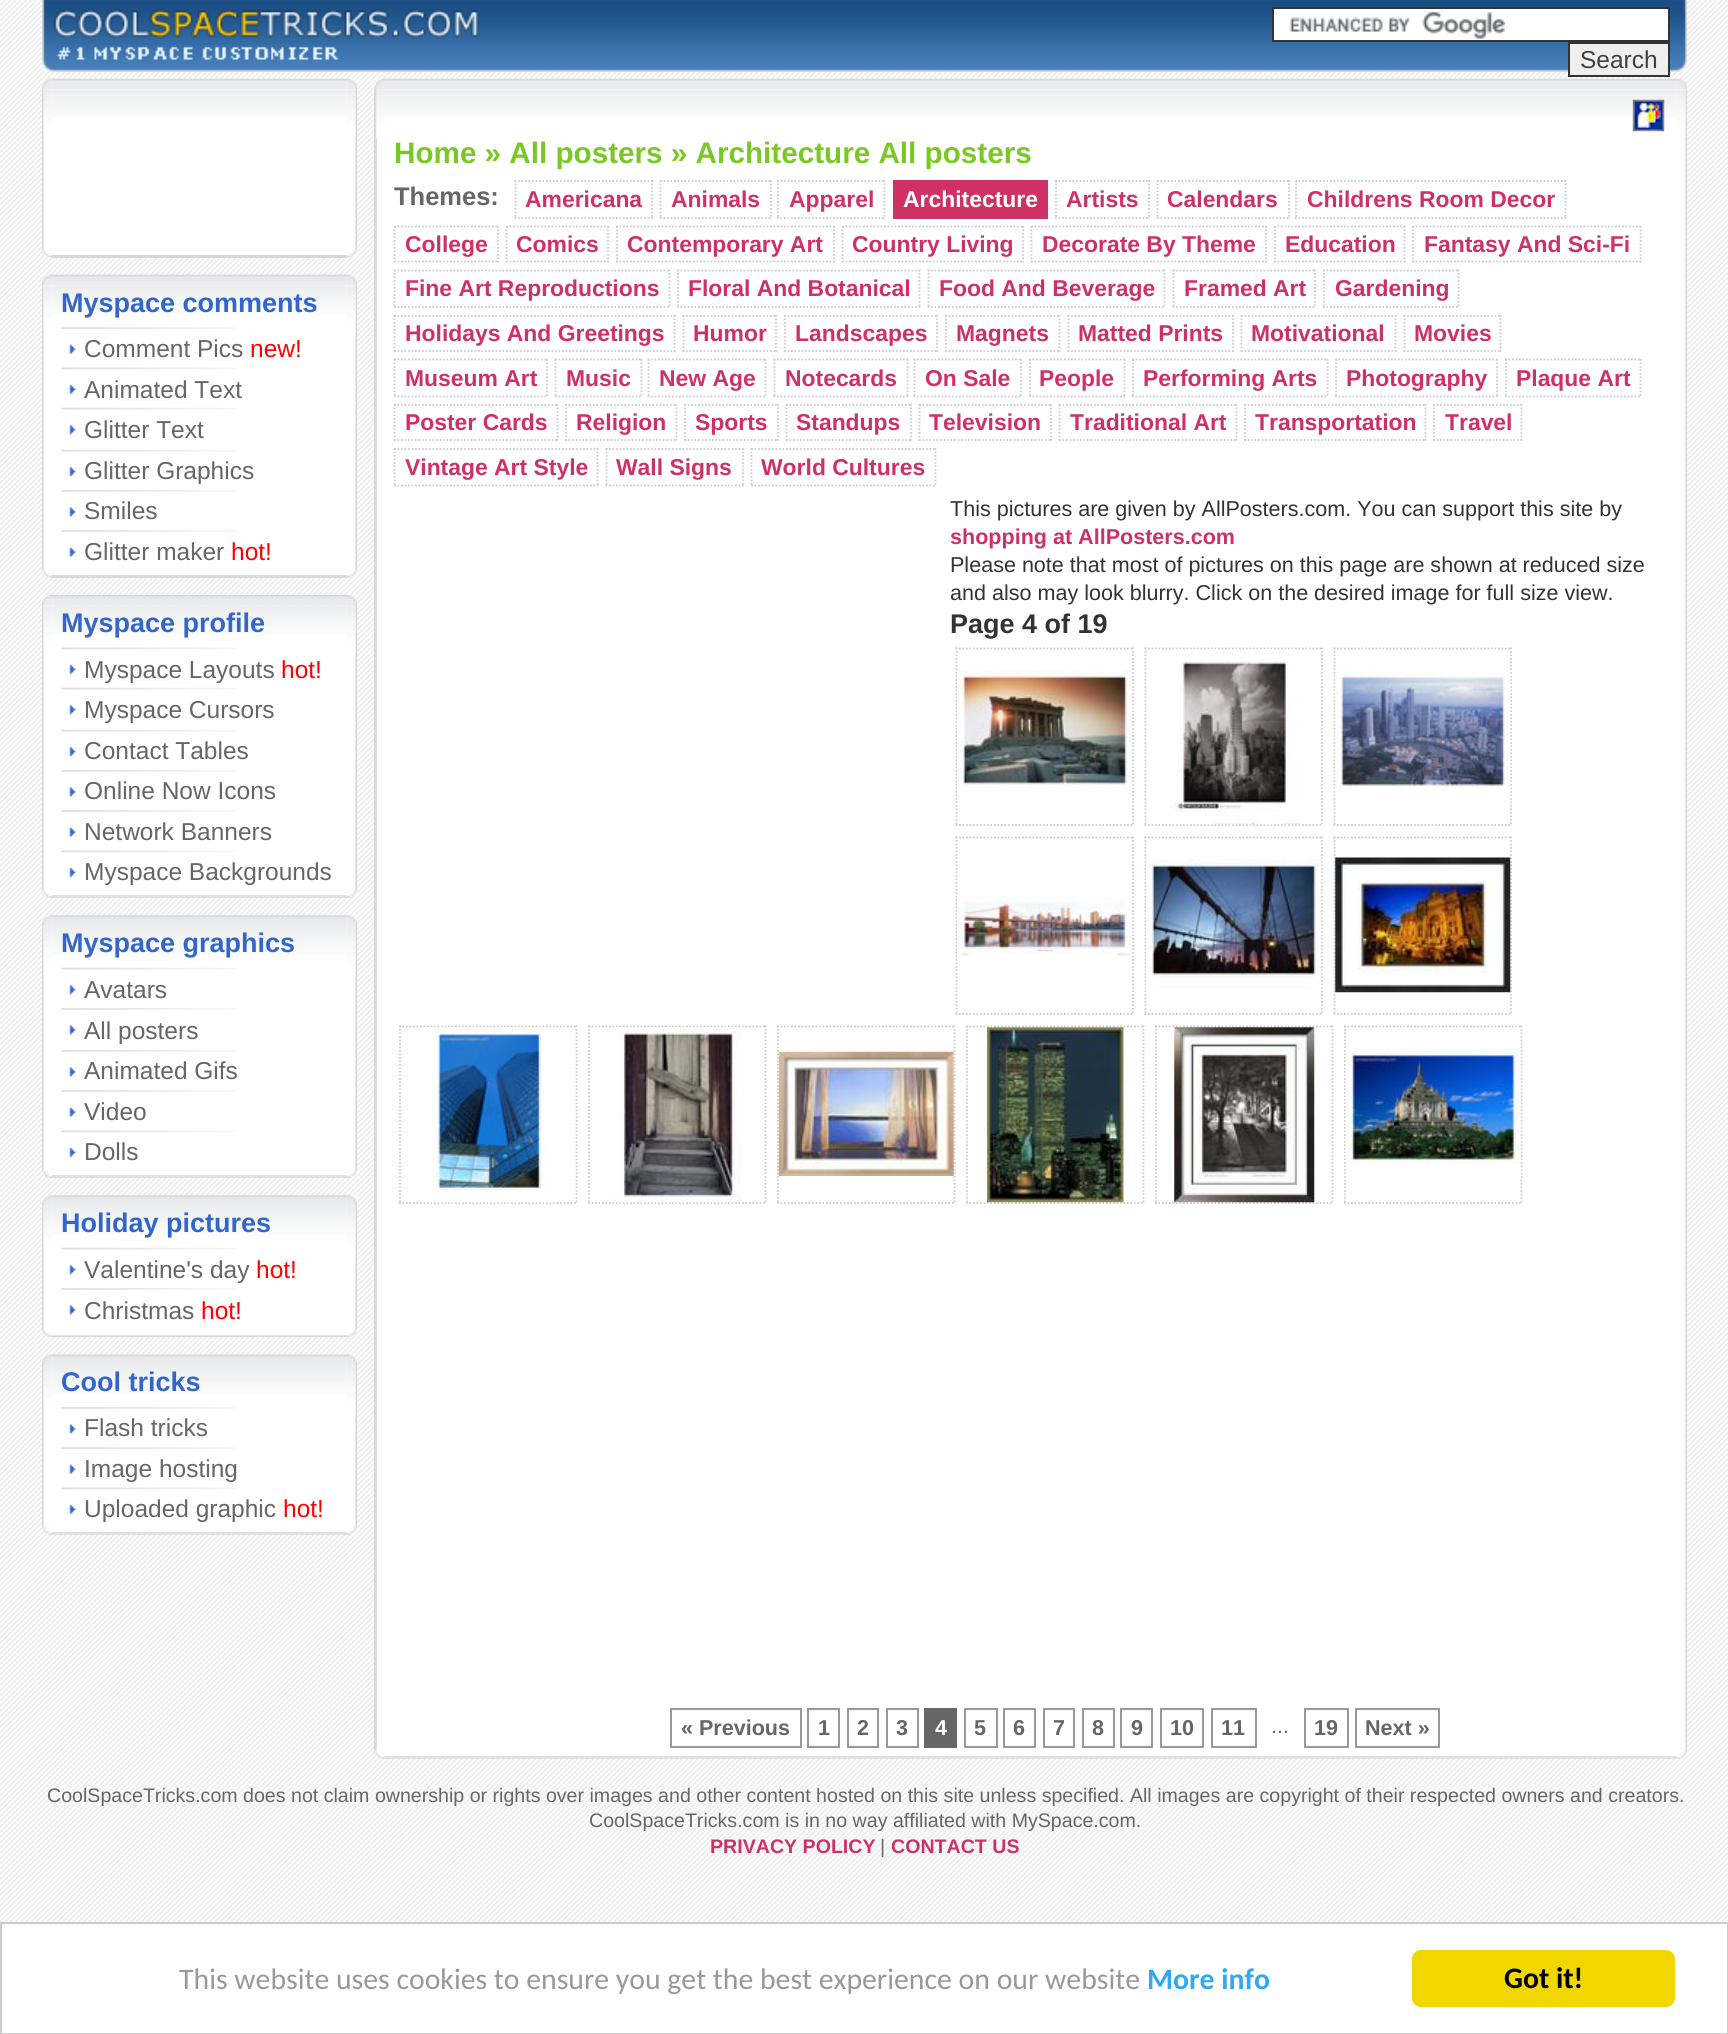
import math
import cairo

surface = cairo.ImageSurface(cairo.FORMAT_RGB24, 1728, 2034)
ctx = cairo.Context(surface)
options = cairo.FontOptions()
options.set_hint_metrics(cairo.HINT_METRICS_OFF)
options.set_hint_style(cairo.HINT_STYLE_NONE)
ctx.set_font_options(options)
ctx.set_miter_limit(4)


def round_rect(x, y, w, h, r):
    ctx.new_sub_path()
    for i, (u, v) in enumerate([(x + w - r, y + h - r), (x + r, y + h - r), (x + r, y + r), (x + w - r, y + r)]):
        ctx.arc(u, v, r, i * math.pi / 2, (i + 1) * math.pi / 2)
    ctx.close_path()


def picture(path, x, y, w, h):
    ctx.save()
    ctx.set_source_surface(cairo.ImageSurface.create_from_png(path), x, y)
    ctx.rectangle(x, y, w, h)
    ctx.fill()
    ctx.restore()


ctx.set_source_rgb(1, 1, 1)
ctx.paint()
picture("img1.png", 0, 0, 1728, 1922)
picture("img2.png", 42, 0, 1645, 72)
ctx.set_source_rgb(1, 1, 1)
ctx.rectangle(1274, 9, 394, 31)
ctx.fill()
picture("img3.png", 1289, 12, 216, 27)
ctx.rectangle(1273, 8, 396, 33)
ctx.set_source_rgb(0.2, 0.2, 0.2)
ctx.stroke()
ctx.set_source_rgb(0.937, 0.937, 0.937)
ctx.rectangle(1569, 43, 100, 33)
ctx.fill_preserve()
ctx.set_source_rgb(0.2, 0.2, 0.2)
ctx.stroke()
ctx.select_font_face("Liberation Sans")
ctx.set_font_size(24.5)
ctx.set_source_rgb(0.251, 0.251, 0.251)
ctx.move_to(1580, 68)
ctx.show_text("Search")
picture("img4.png", 42, 78, 11, 11)
picture("img5.png", 52, 78, 295, 11)
picture("img6.png", 346, 78, 11, 11)
ctx.set_source_rgb(1, 1, 1)
ctx.rectangle(42, 89, 315, 158)
ctx.fill()
picture("img7.png", 42, 89, 2, 158)
picture("img9.png", 52, 89, 295, 29)
picture("img8.png", 43, 89, 10, 49)
picture("img10.png", 355, 89, 2, 158)
picture("img11.png", 346, 89, 10, 49)
picture("img12.png", 42, 247, 11, 11)
ctx.rectangle(53, 247, 294, 8)
ctx.fill()
ctx.set_source_rgb(0.843, 0.847, 0.859)
ctx.rectangle(52, 255, 295, 3)
ctx.fill()
picture("img13.png", 346, 247, 11, 11)
picture("img14.png", 42, 274, 11, 11)
picture("img15.png", 52, 274, 295, 11)
picture("img16.png", 346, 274, 11, 11)
ctx.set_source_rgb(1, 1, 1)
ctx.rectangle(42, 285, 315, 282)
ctx.fill()
picture("img17.png", 42, 285, 2, 282)
picture("img9.png", 52, 285, 295, 29)
picture("img8.png", 43, 285, 10, 49)
ctx.select_font_face("Liberation Sans", cairo.FONT_SLANT_NORMAL, cairo.FONT_WEIGHT_BOLD)
ctx.set_font_size(27)
ctx.set_source_rgb(0.2, 0.4, 0.8)
ctx.move_to(61, 312)
ctx.show_text("Myspace comments")
picture("img18.png", 61, 327, 175, 2)
picture("img19.png", 69, 344, 7, 10)
ctx.select_font_face("Liberation Sans")
ctx.set_font_size(24.5)
ctx.set_source_rgb(0.4, 0.4, 0.4)
ctx.move_to(84, 357)
ctx.show_text("Comment Pics")
ctx.set_source_rgb(1, 0, 0)
ctx.move_to(250, 357)
ctx.show_text("new!")
picture("img20.png", 61, 367, 175, 3)
picture("img21.png", 69, 384, 7, 11)
ctx.set_source_rgb(0.4, 0.4, 0.4)
ctx.move_to(84, 398)
ctx.show_text("Animated Text")
picture("img22.png", 61, 407, 175, 3)
picture("img23.png", 69, 424, 7, 11)
ctx.move_to(84, 438)
ctx.show_text("Glitter Text")
picture("img22.png", 61, 449, 175, 3)
picture("img23.png", 69, 466, 7, 11)
ctx.move_to(84, 479)
ctx.show_text("Glitter Graphics")
picture("img24.png", 61, 490, 175, 2)
picture("img25.png", 69, 507, 7, 10)
ctx.move_to(84, 519)
ctx.show_text("Smiles")
picture("img18.png", 61, 530, 175, 2)
picture("img19.png", 69, 547, 7, 10)
ctx.move_to(84, 560)
ctx.show_text("Glitter maker")
ctx.set_source_rgb(1, 0, 0)
ctx.move_to(231, 560)
ctx.show_text("hot!")
picture("img26.png", 355, 285, 2, 282)
picture("img11.png", 346, 285, 10, 49)
picture("img27.png", 42, 567, 11, 11)
ctx.set_source_rgb(1, 1, 1)
ctx.rectangle(53, 567, 294, 11)
ctx.fill()
ctx.set_source_rgba(0.843, 0.847, 0.855, 0.93)
ctx.rectangle(52, 575, 295, 3)
ctx.fill()
picture("img28.png", 346, 567, 11, 11)
picture("img29.png", 42, 595, 11, 11)
picture("img30.png", 52, 595, 295, 11)
picture("img31.png", 346, 595, 11, 11)
ctx.set_source_rgb(1, 1, 1)
ctx.rectangle(43, 606, 313, 281)
ctx.fill()
picture("img32.png", 42, 605, 2, 283)
picture("img34.png", 52, 605, 295, 29)
picture("img33.png", 43, 606, 10, 48)
ctx.select_font_face("Liberation Sans", cairo.FONT_SLANT_NORMAL, cairo.FONT_WEIGHT_BOLD)
ctx.set_font_size(27)
ctx.set_source_rgb(0.2, 0.4, 0.8)
ctx.move_to(61, 632)
ctx.show_text("Myspace profile")
picture("img20.png", 61, 647, 175, 3)
picture("img21.png", 69, 664, 7, 11)
ctx.select_font_face("Liberation Sans")
ctx.set_font_size(24.5)
ctx.set_source_rgb(0.4, 0.4, 0.4)
ctx.move_to(84, 678)
ctx.show_text("Myspace Layouts")
ctx.set_source_rgb(1, 0, 0)
ctx.move_to(281, 678)
ctx.show_text("hot!")
picture("img22.png", 61, 687, 175, 3)
picture("img23.png", 69, 704, 7, 11)
ctx.set_source_rgb(0.4, 0.4, 0.4)
ctx.move_to(84, 718)
ctx.show_text("Myspace Cursors")
picture("img22.png", 61, 729, 175, 3)
picture("img23.png", 69, 746, 7, 11)
ctx.move_to(84, 759)
ctx.show_text("Contact Tables")
picture("img24.png", 61, 770, 175, 2)
picture("img25.png", 69, 787, 7, 10)
ctx.move_to(84, 799)
ctx.show_text("Online Now Icons")
picture("img18.png", 61, 810, 175, 2)
picture("img19.png", 69, 827, 7, 10)
ctx.move_to(84, 840)
ctx.show_text("Network Banners")
picture("img20.png", 61, 850, 175, 3)
picture("img21.png", 69, 867, 7, 11)
ctx.move_to(84, 880)
ctx.show_text("Myspace Backgrounds")
picture("img35.png", 355, 605, 2, 283)
picture("img36.png", 346, 605, 10, 49)
picture("img37.png", 42, 887, 11, 11)
ctx.set_source_rgb(1, 1, 1)
ctx.rectangle(53, 887, 294, 11)
ctx.fill()
ctx.set_source_rgba(0.843, 0.851, 0.859, 0.78)
ctx.rectangle(52, 895, 295, 3)
ctx.fill()
picture("img38.png", 346, 887, 11, 11)
picture("img39.png", 42, 915, 11, 11)
picture("img40.png", 52, 915, 295, 11)
picture("img41.png", 346, 915, 11, 11)
ctx.set_source_rgb(1, 1, 1)
ctx.rectangle(43, 926, 313, 241)
ctx.fill()
picture("img42.png", 42, 926, 2, 242)
picture("img44.png", 52, 926, 295, 29)
picture("img43.png", 43, 926, 10, 49)
ctx.select_font_face("Liberation Sans", cairo.FONT_SLANT_NORMAL, cairo.FONT_WEIGHT_BOLD)
ctx.set_font_size(27)
ctx.set_source_rgb(0.2, 0.4, 0.8)
ctx.move_to(61, 952)
ctx.show_text("Myspace graphics")
picture("img22.png", 61, 967, 175, 3)
picture("img23.png", 69, 984, 7, 11)
ctx.select_font_face("Liberation Sans")
ctx.set_font_size(24.5)
ctx.set_source_rgb(0.4, 0.4, 0.4)
ctx.move_to(84, 998)
ctx.show_text("Avatars")
picture("img24.png", 61, 1008, 175, 2)
picture("img25.png", 69, 1025, 7, 10)
ctx.move_to(84, 1039)
ctx.show_text("All posters")
picture("img24.png", 61, 1050, 175, 2)
picture("img25.png", 69, 1067, 7, 10)
ctx.move_to(84, 1079)
ctx.show_text("Animated Gifs")
picture("img18.png", 61, 1090, 175, 2)
picture("img19.png", 69, 1107, 7, 10)
ctx.move_to(84, 1120)
ctx.show_text("Video")
picture("img20.png", 61, 1130, 175, 3)
picture("img21.png", 69, 1147, 7, 11)
ctx.move_to(84, 1160)
ctx.show_text("Dolls")
picture("img45.png", 355, 926, 2, 242)
picture("img46.png", 346, 926, 10, 49)
picture("img47.png", 42, 1167, 11, 11)
ctx.set_source_rgb(1, 1, 1)
ctx.rectangle(53, 1167, 294, 11)
ctx.fill()
ctx.set_source_rgba(0.843, 0.851, 0.859, 0.78)
ctx.rectangle(52, 1175, 295, 3)
ctx.fill()
picture("img48.png", 346, 1167, 11, 11)
picture("img49.png", 42, 1195, 11, 11)
picture("img50.png", 52, 1195, 295, 11)
picture("img51.png", 346, 1195, 11, 11)
ctx.set_source_rgb(1, 1, 1)
ctx.rectangle(42, 1206, 315, 121)
ctx.fill()
picture("img52.png", 42, 1206, 2, 121)
picture("img44.png", 52, 1206, 295, 29)
picture("img43.png", 43, 1206, 10, 49)
ctx.select_font_face("Liberation Sans", cairo.FONT_SLANT_NORMAL, cairo.FONT_WEIGHT_BOLD)
ctx.set_font_size(27)
ctx.set_source_rgb(0.2, 0.4, 0.8)
ctx.move_to(61, 1232)
ctx.show_text("Holiday pictures")
picture("img22.png", 61, 1247, 175, 3)
picture("img23.png", 69, 1264, 7, 11)
ctx.select_font_face("Liberation Sans")
ctx.set_font_size(24.5)
ctx.set_source_rgb(0.4, 0.4, 0.4)
ctx.move_to(84, 1278)
ctx.show_text("Valentine's day")
ctx.set_source_rgb(1, 0, 0)
ctx.move_to(256, 1278)
ctx.show_text("hot!")
picture("img24.png", 61, 1288, 175, 2)
picture("img25.png", 69, 1305, 7, 10)
ctx.set_source_rgb(0.4, 0.4, 0.4)
ctx.move_to(84, 1319)
ctx.show_text("Christmas")
ctx.set_source_rgb(1, 0, 0)
ctx.move_to(201, 1319)
ctx.show_text("hot!")
picture("img53.png", 355, 1206, 2, 121)
picture("img46.png", 346, 1206, 10, 49)
picture("img54.png", 42, 1326, 11, 11)
ctx.set_source_rgb(1, 1, 1)
ctx.rectangle(53, 1327, 294, 10)
ctx.fill()
picture("img55.png", 52, 1335, 295, 2)
picture("img56.png", 346, 1326, 11, 11)
picture("img57.png", 42, 1354, 11, 11)
picture("img58.png", 52, 1354, 295, 11)
picture("img59.png", 346, 1354, 11, 11)
ctx.rectangle(43, 1365, 313, 159)
ctx.fill()
picture("img60.png", 42, 1365, 2, 160)
picture("img62.png", 52, 1365, 295, 29)
picture("img61.png", 43, 1365, 10, 49)
ctx.select_font_face("Liberation Sans", cairo.FONT_SLANT_NORMAL, cairo.FONT_WEIGHT_BOLD)
ctx.set_font_size(27)
ctx.set_source_rgb(0.2, 0.4, 0.8)
ctx.move_to(61, 1391)
ctx.show_text("Cool tricks")
picture("img24.png", 61, 1407, 175, 2)
picture("img25.png", 69, 1424, 7, 10)
ctx.select_font_face("Liberation Sans")
ctx.set_font_size(24.5)
ctx.set_source_rgb(0.4, 0.4, 0.4)
ctx.move_to(84, 1436)
ctx.show_text("Flash tricks")
picture("img18.png", 61, 1447, 175, 2)
picture("img19.png", 69, 1464, 7, 10)
ctx.move_to(84, 1477)
ctx.show_text("Image hosting")
picture("img20.png", 61, 1487, 175, 3)
picture("img21.png", 69, 1504, 7, 11)
ctx.move_to(84, 1517)
ctx.show_text("Uploaded graphic")
ctx.set_source_rgb(1, 0, 0)
ctx.move_to(283, 1517)
ctx.show_text("hot!")
picture("img63.png", 355, 1365, 2, 160)
picture("img64.png", 346, 1365, 10, 49)
picture("img47.png", 42, 1524, 11, 11)
ctx.set_source_rgb(1, 1, 1)
ctx.rectangle(53, 1524, 294, 11)
ctx.fill()
ctx.set_source_rgba(0.843, 0.851, 0.859, 0.78)
ctx.rectangle(52, 1532, 295, 3)
ctx.fill()
picture("img48.png", 346, 1524, 11, 11)
picture("img65.png", 374, 78, 11, 12)
picture("img66.png", 385, 78, 1292, 11)
picture("img67.png", 1676, 78, 11, 11)
ctx.set_source_rgb(1, 1, 1)
ctx.rectangle(375, 89, 1312, 1659)
ctx.fill()
ctx.set_source_rgba(0.843, 0.847, 0.855, 0.93)
ctx.rectangle(374, 89, 3, 1660)
ctx.fill()
picture("img68.png", 376, 89, 9, 50)
picture("img69.png", 385, 89, 1292, 29)
picture("img70.png", 1632, 99, 33, 33)
ctx.select_font_face("Liberation Sans", cairo.FONT_SLANT_NORMAL, cairo.FONT_WEIGHT_BOLD)
ctx.set_font_size(29.65)
ctx.set_source_rgb(0.478, 0.784, 0.145)
ctx.move_to(394, 163)
ctx.show_text("Home » All posters » Architecture All posters")
ctx.set_font_size(25.5)
ctx.set_source_rgb(0.4, 0.4, 0.4)
ctx.move_to(394, 205)
ctx.show_text("Themes:")
ctx.new_path()
ctx.move_to(514.5, 181)
ctx.line_to(653, 181)
ctx.set_source_rgb(0.8, 0.8, 0.8)
ctx.set_line_width(1.8)
ctx.set_dash([1.75, 1.75])
ctx.stroke()
ctx.new_path()
ctx.move_to(652, 180)
ctx.line_to(652, 219)
ctx.stroke()
ctx.new_path()
ctx.move_to(514.5, 218)
ctx.line_to(653, 218)
ctx.stroke()
ctx.new_path()
ctx.move_to(515.5, 180)
ctx.line_to(515.5, 219)
ctx.stroke()
ctx.set_font_size(22.9)
ctx.set_source_rgb(0.812, 0.192, 0.396)
ctx.move_to(525, 207)
ctx.show_text("Americana")
ctx.new_path()
ctx.move_to(660, 181)
ctx.line_to(772, 181)
ctx.set_source_rgb(0.8, 0.8, 0.8)
ctx.stroke()
ctx.new_path()
ctx.move_to(771, 180)
ctx.line_to(771, 219)
ctx.stroke()
ctx.new_path()
ctx.move_to(660, 218)
ctx.line_to(772, 218)
ctx.stroke()
ctx.new_path()
ctx.move_to(660.5, 180)
ctx.line_to(660.5, 219)
ctx.stroke()
ctx.set_source_rgb(0.812, 0.192, 0.396)
ctx.move_to(671, 207)
ctx.show_text("Animals")
ctx.new_path()
ctx.move_to(777, 181)
ctx.line_to(885.5, 181)
ctx.set_source_rgb(0.8, 0.8, 0.8)
ctx.stroke()
ctx.new_path()
ctx.move_to(884.5, 180)
ctx.line_to(884.5, 219)
ctx.stroke()
ctx.new_path()
ctx.move_to(777, 218)
ctx.line_to(885.5, 218)
ctx.stroke()
ctx.new_path()
ctx.move_to(778, 180)
ctx.line_to(778, 219)
ctx.stroke()
ctx.set_source_rgb(0.812, 0.192, 0.396)
ctx.move_to(789, 207)
ctx.show_text("Apparel")
ctx.rectangle(893, 180, 155, 39)
ctx.fill()
ctx.set_source_rgb(1, 1, 1)
ctx.move_to(903, 207)
ctx.show_text("Architecture")
ctx.new_path()
ctx.move_to(1055, 181)
ctx.line_to(1150, 181)
ctx.set_source_rgb(0.8, 0.8, 0.8)
ctx.stroke()
ctx.new_path()
ctx.move_to(1149, 180)
ctx.line_to(1149, 219)
ctx.stroke()
ctx.new_path()
ctx.move_to(1055, 218)
ctx.line_to(1150, 218)
ctx.stroke()
ctx.new_path()
ctx.move_to(1056, 180)
ctx.line_to(1056, 219)
ctx.stroke()
ctx.set_source_rgb(0.812, 0.192, 0.396)
ctx.move_to(1066, 207)
ctx.show_text("Artists")
ctx.new_path()
ctx.move_to(1157, 181)
ctx.line_to(1290, 181)
ctx.set_source_rgb(0.8, 0.8, 0.8)
ctx.stroke()
ctx.new_path()
ctx.move_to(1289, 180)
ctx.line_to(1289, 219)
ctx.stroke()
ctx.new_path()
ctx.move_to(1157, 218)
ctx.line_to(1290, 218)
ctx.stroke()
ctx.new_path()
ctx.move_to(1157.5, 180)
ctx.line_to(1157.5, 219)
ctx.stroke()
ctx.set_source_rgb(0.812, 0.192, 0.396)
ctx.move_to(1167, 207)
ctx.show_text("Calendars")
ctx.new_path()
ctx.move_to(1295, 181)
ctx.line_to(1566, 181)
ctx.set_source_rgb(0.8, 0.8, 0.8)
ctx.stroke()
ctx.new_path()
ctx.move_to(1565.5, 180)
ctx.line_to(1565.5, 219)
ctx.stroke()
ctx.new_path()
ctx.move_to(1295, 218)
ctx.line_to(1566, 218)
ctx.stroke()
ctx.new_path()
ctx.move_to(1296, 180)
ctx.line_to(1296, 219)
ctx.stroke()
ctx.set_source_rgb(0.812, 0.192, 0.396)
ctx.move_to(1307, 207)
ctx.show_text("Childrens Room Decor")
ctx.new_path()
ctx.move_to(394, 226.5)
ctx.line_to(499, 226.5)
ctx.set_source_rgb(0.8, 0.8, 0.8)
ctx.stroke()
ctx.new_path()
ctx.move_to(498, 226)
ctx.line_to(498, 262.5)
ctx.stroke()
ctx.new_path()
ctx.move_to(394, 261.5)
ctx.line_to(499, 261.5)
ctx.stroke()
ctx.new_path()
ctx.move_to(394.5, 226)
ctx.line_to(394.5, 262.5)
ctx.stroke()
ctx.set_source_rgb(0.812, 0.192, 0.396)
ctx.move_to(405, 252)
ctx.show_text("College")
ctx.new_path()
ctx.move_to(506, 226.5)
ctx.line_to(609, 226.5)
ctx.set_source_rgb(0.8, 0.8, 0.8)
ctx.stroke()
ctx.new_path()
ctx.move_to(608, 226)
ctx.line_to(608, 262.5)
ctx.stroke()
ctx.new_path()
ctx.move_to(506, 261.5)
ctx.line_to(609, 261.5)
ctx.stroke()
ctx.new_path()
ctx.move_to(506.5, 226)
ctx.line_to(506.5, 262.5)
ctx.stroke()
ctx.set_source_rgb(0.812, 0.192, 0.396)
ctx.move_to(516, 252)
ctx.show_text("Comics")
ctx.new_path()
ctx.move_to(616, 226.5)
ctx.line_to(835, 226.5)
ctx.set_source_rgb(0.8, 0.8, 0.8)
ctx.stroke()
ctx.new_path()
ctx.move_to(834, 226)
ctx.line_to(834, 262.5)
ctx.stroke()
ctx.new_path()
ctx.move_to(616, 261.5)
ctx.line_to(835, 261.5)
ctx.stroke()
ctx.new_path()
ctx.move_to(617, 226)
ctx.line_to(617, 262.5)
ctx.stroke()
ctx.set_source_rgb(0.812, 0.192, 0.396)
ctx.move_to(627, 252)
ctx.show_text("Contemporary Art")
ctx.new_path()
ctx.move_to(842, 226.5)
ctx.line_to(1024, 226.5)
ctx.set_source_rgb(0.8, 0.8, 0.8)
ctx.stroke()
ctx.new_path()
ctx.move_to(1023, 226)
ctx.line_to(1023, 262.5)
ctx.stroke()
ctx.new_path()
ctx.move_to(842, 261.5)
ctx.line_to(1024, 261.5)
ctx.stroke()
ctx.new_path()
ctx.move_to(842.5, 226)
ctx.line_to(842.5, 262.5)
ctx.stroke()
ctx.set_source_rgb(0.812, 0.192, 0.396)
ctx.move_to(852, 252)
ctx.show_text("Country Living")
ctx.new_path()
ctx.move_to(1031, 226.5)
ctx.line_to(1267, 226.5)
ctx.set_source_rgb(0.8, 0.8, 0.8)
ctx.stroke()
ctx.new_path()
ctx.move_to(1266, 226)
ctx.line_to(1266, 262.5)
ctx.stroke()
ctx.new_path()
ctx.move_to(1031, 261.5)
ctx.line_to(1267, 261.5)
ctx.stroke()
ctx.new_path()
ctx.move_to(1031.5, 226)
ctx.line_to(1031.5, 262.5)
ctx.stroke()
ctx.set_source_rgb(0.812, 0.192, 0.396)
ctx.move_to(1042, 252)
ctx.show_text("Decorate By Theme")
ctx.new_path()
ctx.move_to(1274, 226.5)
ctx.line_to(1405, 226.5)
ctx.set_source_rgb(0.8, 0.8, 0.8)
ctx.stroke()
ctx.new_path()
ctx.move_to(1404.5, 226)
ctx.line_to(1404.5, 262.5)
ctx.stroke()
ctx.new_path()
ctx.move_to(1274, 261.5)
ctx.line_to(1405, 261.5)
ctx.stroke()
ctx.new_path()
ctx.move_to(1275, 226)
ctx.line_to(1275, 262.5)
ctx.stroke()
ctx.set_source_rgb(0.812, 0.192, 0.396)
ctx.move_to(1285, 252)
ctx.show_text("Education")
ctx.new_path()
ctx.move_to(1412, 226.5)
ctx.line_to(1641.5, 226.5)
ctx.set_source_rgb(0.8, 0.8, 0.8)
ctx.stroke()
ctx.new_path()
ctx.move_to(1640.5, 226)
ctx.line_to(1640.5, 262.5)
ctx.stroke()
ctx.new_path()
ctx.move_to(1412, 261.5)
ctx.line_to(1641.5, 261.5)
ctx.stroke()
ctx.new_path()
ctx.move_to(1413, 226)
ctx.line_to(1413, 262.5)
ctx.stroke()
ctx.set_source_rgb(0.812, 0.192, 0.396)
ctx.move_to(1424, 252)
ctx.show_text("Fantasy And Sci-Fi")
ctx.new_path()
ctx.move_to(394, 270.5)
ctx.line_to(670, 270.5)
ctx.set_source_rgb(0.8, 0.8, 0.8)
ctx.stroke()
ctx.new_path()
ctx.move_to(669.5, 269.5)
ctx.line_to(669.5, 308)
ctx.stroke()
ctx.new_path()
ctx.move_to(394, 307)
ctx.line_to(670, 307)
ctx.stroke()
ctx.new_path()
ctx.move_to(394.5, 269.5)
ctx.line_to(394.5, 308)
ctx.stroke()
ctx.set_source_rgb(0.812, 0.192, 0.396)
ctx.move_to(405, 296)
ctx.show_text("Fine Art Reproductions")
ctx.new_path()
ctx.move_to(677, 270.5)
ctx.line_to(920.5, 270.5)
ctx.set_source_rgb(0.8, 0.8, 0.8)
ctx.stroke()
ctx.new_path()
ctx.move_to(919.5, 269.5)
ctx.line_to(919.5, 308)
ctx.stroke()
ctx.new_path()
ctx.move_to(677, 307)
ctx.line_to(920.5, 307)
ctx.stroke()
ctx.new_path()
ctx.move_to(678, 269.5)
ctx.line_to(678, 308)
ctx.stroke()
ctx.set_source_rgb(0.812, 0.192, 0.396)
ctx.move_to(688, 296)
ctx.show_text("Floral And Botanical")
ctx.new_path()
ctx.move_to(927.5, 270.5)
ctx.line_to(1165.5, 270.5)
ctx.set_source_rgb(0.8, 0.8, 0.8)
ctx.stroke()
ctx.new_path()
ctx.move_to(1164.5, 269.5)
ctx.line_to(1164.5, 308)
ctx.stroke()
ctx.new_path()
ctx.move_to(927.5, 307)
ctx.line_to(1165.5, 307)
ctx.stroke()
ctx.new_path()
ctx.move_to(928.5, 269.5)
ctx.line_to(928.5, 308)
ctx.stroke()
ctx.set_source_rgb(0.812, 0.192, 0.396)
ctx.move_to(939, 296)
ctx.show_text("Food And Beverage")
ctx.new_path()
ctx.move_to(1172.5, 270.5)
ctx.line_to(1316, 270.5)
ctx.set_source_rgb(0.8, 0.8, 0.8)
ctx.stroke()
ctx.new_path()
ctx.move_to(1315, 269.5)
ctx.line_to(1315, 308)
ctx.stroke()
ctx.new_path()
ctx.move_to(1172.5, 307)
ctx.line_to(1316, 307)
ctx.stroke()
ctx.new_path()
ctx.move_to(1173.5, 269.5)
ctx.line_to(1173.5, 308)
ctx.stroke()
ctx.set_source_rgb(0.812, 0.192, 0.396)
ctx.move_to(1184, 296)
ctx.show_text("Framed Art")
ctx.new_path()
ctx.move_to(1323, 270.5)
ctx.line_to(1459.5, 270.5)
ctx.set_source_rgb(0.8, 0.8, 0.8)
ctx.stroke()
ctx.new_path()
ctx.move_to(1458.5, 269.5)
ctx.line_to(1458.5, 308)
ctx.stroke()
ctx.new_path()
ctx.move_to(1323, 307)
ctx.line_to(1459.5, 307)
ctx.stroke()
ctx.new_path()
ctx.move_to(1324, 269.5)
ctx.line_to(1324, 308)
ctx.stroke()
ctx.set_source_rgb(0.812, 0.192, 0.396)
ctx.move_to(1335, 296)
ctx.show_text("Gardening")
ctx.new_path()
ctx.move_to(394, 316)
ctx.line_to(675.5, 316)
ctx.set_source_rgb(0.8, 0.8, 0.8)
ctx.stroke()
ctx.new_path()
ctx.move_to(674.5, 315)
ctx.line_to(674.5, 352)
ctx.stroke()
ctx.new_path()
ctx.move_to(394, 351)
ctx.line_to(675.5, 351)
ctx.stroke()
ctx.new_path()
ctx.move_to(394.5, 315)
ctx.line_to(394.5, 352)
ctx.stroke()
ctx.set_source_rgb(0.812, 0.192, 0.396)
ctx.move_to(405, 341)
ctx.show_text("Holidays And Greetings")
ctx.new_path()
ctx.move_to(682.5, 316)
ctx.line_to(777, 316)
ctx.set_source_rgb(0.8, 0.8, 0.8)
ctx.stroke()
ctx.new_path()
ctx.move_to(776, 315)
ctx.line_to(776, 352)
ctx.stroke()
ctx.new_path()
ctx.move_to(682.5, 351)
ctx.line_to(777, 351)
ctx.stroke()
ctx.new_path()
ctx.move_to(683.5, 315)
ctx.line_to(683.5, 352)
ctx.stroke()
ctx.set_source_rgb(0.812, 0.192, 0.396)
ctx.move_to(693, 341)
ctx.show_text("Humor")
ctx.new_path()
ctx.move_to(784, 316)
ctx.line_to(938, 316)
ctx.set_source_rgb(0.8, 0.8, 0.8)
ctx.stroke()
ctx.new_path()
ctx.move_to(937, 315)
ctx.line_to(937, 352)
ctx.stroke()
ctx.new_path()
ctx.move_to(784, 351)
ctx.line_to(938, 351)
ctx.stroke()
ctx.new_path()
ctx.move_to(785, 315)
ctx.line_to(785, 352)
ctx.stroke()
ctx.set_source_rgb(0.812, 0.192, 0.396)
ctx.move_to(795, 341)
ctx.show_text("Landscapes")
ctx.new_path()
ctx.move_to(945, 316)
ctx.line_to(1060.5, 316)
ctx.set_source_rgb(0.8, 0.8, 0.8)
ctx.stroke()
ctx.new_path()
ctx.move_to(1059.5, 315)
ctx.line_to(1059.5, 352)
ctx.stroke()
ctx.new_path()
ctx.move_to(945, 351)
ctx.line_to(1060.5, 351)
ctx.stroke()
ctx.new_path()
ctx.move_to(946, 315)
ctx.line_to(946, 352)
ctx.stroke()
ctx.set_source_rgb(0.812, 0.192, 0.396)
ctx.move_to(956, 341)
ctx.show_text("Magnets")
ctx.new_path()
ctx.move_to(1067.5, 316)
ctx.line_to(1234, 316)
ctx.set_source_rgb(0.8, 0.8, 0.8)
ctx.stroke()
ctx.new_path()
ctx.move_to(1233, 315)
ctx.line_to(1233, 352)
ctx.stroke()
ctx.new_path()
ctx.move_to(1067.5, 351)
ctx.line_to(1234, 351)
ctx.stroke()
ctx.new_path()
ctx.move_to(1068.5, 315)
ctx.line_to(1068.5, 352)
ctx.stroke()
ctx.set_source_rgb(0.812, 0.192, 0.396)
ctx.move_to(1078, 341)
ctx.show_text("Matted Prints")
ctx.new_path()
ctx.move_to(1241, 316)
ctx.line_to(1396.5, 316)
ctx.set_source_rgb(0.8, 0.8, 0.8)
ctx.stroke()
ctx.new_path()
ctx.move_to(1395.5, 315)
ctx.line_to(1395.5, 352)
ctx.stroke()
ctx.new_path()
ctx.move_to(1241, 351)
ctx.line_to(1396.5, 351)
ctx.stroke()
ctx.new_path()
ctx.move_to(1241.5, 315)
ctx.line_to(1241.5, 352)
ctx.stroke()
ctx.set_source_rgb(0.812, 0.192, 0.396)
ctx.move_to(1251, 341)
ctx.show_text("Motivational")
ctx.new_path()
ctx.move_to(1403.5, 316)
ctx.line_to(1501.5, 316)
ctx.set_source_rgb(0.8, 0.8, 0.8)
ctx.stroke()
ctx.new_path()
ctx.move_to(1500.5, 315)
ctx.line_to(1500.5, 352)
ctx.stroke()
ctx.new_path()
ctx.move_to(1403.5, 351)
ctx.line_to(1501.5, 351)
ctx.stroke()
ctx.new_path()
ctx.move_to(1404.5, 315)
ctx.line_to(1404.5, 352)
ctx.stroke()
ctx.set_source_rgb(0.812, 0.192, 0.396)
ctx.move_to(1414, 341)
ctx.show_text("Movies")
ctx.new_path()
ctx.move_to(394, 359.5)
ctx.line_to(548, 359.5)
ctx.set_source_rgb(0.8, 0.8, 0.8)
ctx.stroke()
ctx.new_path()
ctx.move_to(547, 359)
ctx.line_to(547, 397)
ctx.stroke()
ctx.new_path()
ctx.move_to(394, 396.5)
ctx.line_to(548, 396.5)
ctx.stroke()
ctx.new_path()
ctx.move_to(394.5, 359)
ctx.line_to(394.5, 397)
ctx.stroke()
ctx.set_source_rgb(0.812, 0.192, 0.396)
ctx.move_to(405, 386)
ctx.show_text("Museum Art")
ctx.new_path()
ctx.move_to(555, 359.5)
ctx.line_to(642, 359.5)
ctx.set_source_rgb(0.8, 0.8, 0.8)
ctx.stroke()
ctx.new_path()
ctx.move_to(641.5, 359)
ctx.line_to(641.5, 397)
ctx.stroke()
ctx.new_path()
ctx.move_to(555, 396.5)
ctx.line_to(642, 396.5)
ctx.stroke()
ctx.new_path()
ctx.move_to(555.5, 359)
ctx.line_to(555.5, 397)
ctx.stroke()
ctx.set_source_rgb(0.812, 0.192, 0.396)
ctx.move_to(566, 386)
ctx.show_text("Music")
ctx.new_path()
ctx.move_to(647.5, 359.5)
ctx.line_to(766.5, 359.5)
ctx.set_source_rgb(0.8, 0.8, 0.8)
ctx.stroke()
ctx.new_path()
ctx.move_to(765.5, 359)
ctx.line_to(765.5, 397)
ctx.stroke()
ctx.new_path()
ctx.move_to(647.5, 396.5)
ctx.line_to(766.5, 396.5)
ctx.stroke()
ctx.new_path()
ctx.move_to(648.5, 359)
ctx.line_to(648.5, 397)
ctx.stroke()
ctx.set_source_rgb(0.812, 0.192, 0.396)
ctx.move_to(659, 386)
ctx.show_text("New Age")
ctx.new_path()
ctx.move_to(773.5, 359.5)
ctx.line_to(908, 359.5)
ctx.set_source_rgb(0.8, 0.8, 0.8)
ctx.stroke()
ctx.new_path()
ctx.move_to(907.5, 359)
ctx.line_to(907.5, 397)
ctx.stroke()
ctx.new_path()
ctx.move_to(773.5, 396.5)
ctx.line_to(908, 396.5)
ctx.stroke()
ctx.new_path()
ctx.move_to(774.5, 359)
ctx.line_to(774.5, 397)
ctx.stroke()
ctx.set_source_rgb(0.812, 0.192, 0.396)
ctx.move_to(785, 386)
ctx.show_text("Notecards")
ctx.new_path()
ctx.move_to(913.5, 359.5)
ctx.line_to(1022, 359.5)
ctx.set_source_rgb(0.8, 0.8, 0.8)
ctx.stroke()
ctx.new_path()
ctx.move_to(1021, 359)
ctx.line_to(1021, 397)
ctx.stroke()
ctx.new_path()
ctx.move_to(913.5, 396.5)
ctx.line_to(1022, 396.5)
ctx.stroke()
ctx.new_path()
ctx.move_to(914.5, 359)
ctx.line_to(914.5, 397)
ctx.stroke()
ctx.set_source_rgb(0.812, 0.192, 0.396)
ctx.move_to(925, 386)
ctx.show_text("On Sale")
ctx.new_path()
ctx.move_to(1029, 359.5)
ctx.line_to(1125, 359.5)
ctx.set_source_rgb(0.8, 0.8, 0.8)
ctx.stroke()
ctx.new_path()
ctx.move_to(1124.5, 359)
ctx.line_to(1124.5, 397)
ctx.stroke()
ctx.new_path()
ctx.move_to(1029, 396.5)
ctx.line_to(1125, 396.5)
ctx.stroke()
ctx.new_path()
ctx.move_to(1030, 359)
ctx.line_to(1030, 397)
ctx.stroke()
ctx.set_source_rgb(0.812, 0.192, 0.396)
ctx.move_to(1039, 386)
ctx.show_text("People")
ctx.new_path()
ctx.move_to(1132, 359.5)
ctx.line_to(1328, 359.5)
ctx.set_source_rgb(0.8, 0.8, 0.8)
ctx.stroke()
ctx.new_path()
ctx.move_to(1327.5, 359)
ctx.line_to(1327.5, 397)
ctx.stroke()
ctx.new_path()
ctx.move_to(1132, 396.5)
ctx.line_to(1328, 396.5)
ctx.stroke()
ctx.new_path()
ctx.move_to(1133, 359)
ctx.line_to(1133, 397)
ctx.stroke()
ctx.set_source_rgb(0.812, 0.192, 0.396)
ctx.move_to(1143, 386)
ctx.show_text("Performing Arts")
ctx.new_path()
ctx.move_to(1335, 359.5)
ctx.line_to(1498, 359.5)
ctx.set_source_rgb(0.8, 0.8, 0.8)
ctx.stroke()
ctx.new_path()
ctx.move_to(1497, 359)
ctx.line_to(1497, 397)
ctx.stroke()
ctx.new_path()
ctx.move_to(1335, 396.5)
ctx.line_to(1498, 396.5)
ctx.stroke()
ctx.new_path()
ctx.move_to(1336, 359)
ctx.line_to(1336, 397)
ctx.stroke()
ctx.set_source_rgb(0.812, 0.192, 0.396)
ctx.move_to(1346, 386)
ctx.show_text("Photography")
ctx.new_path()
ctx.move_to(1505, 359.5)
ctx.line_to(1641.5, 359.5)
ctx.set_source_rgb(0.8, 0.8, 0.8)
ctx.stroke()
ctx.new_path()
ctx.move_to(1640.5, 359)
ctx.line_to(1640.5, 397)
ctx.stroke()
ctx.new_path()
ctx.move_to(1505, 396.5)
ctx.line_to(1641.5, 396.5)
ctx.stroke()
ctx.new_path()
ctx.move_to(1506, 359)
ctx.line_to(1506, 397)
ctx.stroke()
ctx.set_source_rgb(0.812, 0.192, 0.396)
ctx.move_to(1516, 386)
ctx.show_text("Plaque Art")
ctx.new_path()
ctx.move_to(394, 405)
ctx.line_to(558, 405)
ctx.set_source_rgb(0.8, 0.8, 0.8)
ctx.stroke()
ctx.new_path()
ctx.move_to(557.5, 404)
ctx.line_to(557.5, 441)
ctx.stroke()
ctx.new_path()
ctx.move_to(394, 440)
ctx.line_to(558, 440)
ctx.stroke()
ctx.new_path()
ctx.move_to(394.5, 404)
ctx.line_to(394.5, 441)
ctx.stroke()
ctx.set_source_rgb(0.812, 0.192, 0.396)
ctx.move_to(405, 430)
ctx.show_text("Poster Cards")
ctx.new_path()
ctx.move_to(565, 405)
ctx.line_to(677, 405)
ctx.set_source_rgb(0.8, 0.8, 0.8)
ctx.stroke()
ctx.new_path()
ctx.move_to(676.5, 404)
ctx.line_to(676.5, 441)
ctx.stroke()
ctx.new_path()
ctx.move_to(565, 440)
ctx.line_to(677, 440)
ctx.stroke()
ctx.new_path()
ctx.move_to(566, 404)
ctx.line_to(566, 441)
ctx.stroke()
ctx.set_source_rgb(0.812, 0.192, 0.396)
ctx.move_to(576, 430)
ctx.show_text("Religion")
ctx.new_path()
ctx.move_to(684, 405)
ctx.line_to(779, 405)
ctx.set_source_rgb(0.8, 0.8, 0.8)
ctx.stroke()
ctx.new_path()
ctx.move_to(778, 404)
ctx.line_to(778, 441)
ctx.stroke()
ctx.new_path()
ctx.move_to(684, 440)
ctx.line_to(779, 440)
ctx.stroke()
ctx.new_path()
ctx.move_to(685, 404)
ctx.line_to(685, 441)
ctx.stroke()
ctx.set_source_rgb(0.812, 0.192, 0.396)
ctx.move_to(695, 430)
ctx.show_text("Sports")
ctx.new_path()
ctx.move_to(786, 405)
ctx.line_to(912, 405)
ctx.set_source_rgb(0.8, 0.8, 0.8)
ctx.stroke()
ctx.new_path()
ctx.move_to(911, 404)
ctx.line_to(911, 441)
ctx.stroke()
ctx.new_path()
ctx.move_to(786, 440)
ctx.line_to(912, 440)
ctx.stroke()
ctx.new_path()
ctx.move_to(786.5, 404)
ctx.line_to(786.5, 441)
ctx.stroke()
ctx.set_source_rgb(0.812, 0.192, 0.396)
ctx.move_to(796, 430)
ctx.show_text("Standups")
ctx.new_path()
ctx.move_to(919, 405)
ctx.line_to(1052, 405)
ctx.set_source_rgb(0.8, 0.8, 0.8)
ctx.stroke()
ctx.new_path()
ctx.move_to(1051, 404)
ctx.line_to(1051, 441)
ctx.stroke()
ctx.new_path()
ctx.move_to(919, 440)
ctx.line_to(1052, 440)
ctx.stroke()
ctx.new_path()
ctx.move_to(919.5, 404)
ctx.line_to(919.5, 441)
ctx.stroke()
ctx.set_source_rgb(0.812, 0.192, 0.396)
ctx.move_to(929, 430)
ctx.show_text("Television")
ctx.new_path()
ctx.move_to(1059, 405)
ctx.line_to(1237, 405)
ctx.set_source_rgb(0.8, 0.8, 0.8)
ctx.stroke()
ctx.new_path()
ctx.move_to(1236.5, 404)
ctx.line_to(1236.5, 441)
ctx.stroke()
ctx.new_path()
ctx.move_to(1059, 440)
ctx.line_to(1237, 440)
ctx.stroke()
ctx.new_path()
ctx.move_to(1059.5, 404)
ctx.line_to(1059.5, 441)
ctx.stroke()
ctx.set_source_rgb(0.812, 0.192, 0.396)
ctx.move_to(1070, 430)
ctx.show_text("Traditional Art")
ctx.new_path()
ctx.move_to(1244, 405)
ctx.line_to(1426, 405)
ctx.set_source_rgb(0.8, 0.8, 0.8)
ctx.stroke()
ctx.new_path()
ctx.move_to(1425.5, 404)
ctx.line_to(1425.5, 441)
ctx.stroke()
ctx.new_path()
ctx.move_to(1244, 440)
ctx.line_to(1426, 440)
ctx.stroke()
ctx.new_path()
ctx.move_to(1245, 404)
ctx.line_to(1245, 441)
ctx.stroke()
ctx.set_source_rgb(0.812, 0.192, 0.396)
ctx.move_to(1255, 430)
ctx.show_text("Transportation")
ctx.new_path()
ctx.move_to(1433, 405)
ctx.line_to(1522.5, 405)
ctx.set_source_rgb(0.8, 0.8, 0.8)
ctx.stroke()
ctx.new_path()
ctx.move_to(1521.5, 404)
ctx.line_to(1521.5, 441)
ctx.stroke()
ctx.new_path()
ctx.move_to(1433, 440)
ctx.line_to(1522.5, 440)
ctx.stroke()
ctx.new_path()
ctx.move_to(1434, 404)
ctx.line_to(1434, 441)
ctx.stroke()
ctx.set_source_rgb(0.812, 0.192, 0.396)
ctx.move_to(1445, 430)
ctx.show_text("Travel")
ctx.new_path()
ctx.move_to(394, 449)
ctx.line_to(598.5, 449)
ctx.set_source_rgb(0.8, 0.8, 0.8)
ctx.stroke()
ctx.new_path()
ctx.move_to(597.5, 448)
ctx.line_to(597.5, 486.5)
ctx.stroke()
ctx.new_path()
ctx.move_to(394, 485.5)
ctx.line_to(598.5, 485.5)
ctx.stroke()
ctx.new_path()
ctx.move_to(394.5, 448)
ctx.line_to(394.5, 486.5)
ctx.stroke()
ctx.set_source_rgb(0.812, 0.192, 0.396)
ctx.move_to(405, 475)
ctx.show_text("Vintage Art Style")
ctx.new_path()
ctx.move_to(605.5, 449)
ctx.line_to(744, 449)
ctx.set_source_rgb(0.8, 0.8, 0.8)
ctx.stroke()
ctx.new_path()
ctx.move_to(743, 448)
ctx.line_to(743, 486.5)
ctx.stroke()
ctx.new_path()
ctx.move_to(605.5, 485.5)
ctx.line_to(744, 485.5)
ctx.stroke()
ctx.new_path()
ctx.move_to(606.5, 448)
ctx.line_to(606.5, 486.5)
ctx.stroke()
ctx.set_source_rgb(0.812, 0.192, 0.396)
ctx.move_to(616, 475)
ctx.show_text("Wall Signs")
ctx.new_path()
ctx.move_to(751, 449)
ctx.line_to(936, 449)
ctx.set_source_rgb(0.8, 0.8, 0.8)
ctx.stroke()
ctx.new_path()
ctx.move_to(935.5, 448)
ctx.line_to(935.5, 486.5)
ctx.stroke()
ctx.new_path()
ctx.move_to(751, 485.5)
ctx.line_to(936, 485.5)
ctx.stroke()
ctx.new_path()
ctx.move_to(751.5, 448)
ctx.line_to(751.5, 486.5)
ctx.stroke()
ctx.set_source_rgb(0.812, 0.192, 0.396)
ctx.move_to(761, 475)
ctx.show_text("World Cultures")
ctx.select_font_face("Liberation Sans")
ctx.set_font_size(21.55)
ctx.set_source_rgb(0.2, 0.2, 0.2)
ctx.move_to(950, 516)
ctx.show_text("This pictures are given by AllPosters.com. You can support this site by")
ctx.select_font_face("Liberation Sans", cairo.FONT_SLANT_NORMAL, cairo.FONT_WEIGHT_BOLD)
ctx.set_source_rgb(0.812, 0.192, 0.396)
ctx.move_to(950, 544)
ctx.show_text("shopping at AllPosters.com")
ctx.select_font_face("Liberation Sans")
ctx.set_source_rgb(0.2, 0.2, 0.2)
ctx.move_to(950, 572)
ctx.show_text("Please note that most of pictures on this page are shown at reduced size")
ctx.move_to(950, 600)
ctx.show_text("and also may look blurry. Click on the desired image for full size view.")
ctx.select_font_face("Liberation Sans", cairo.FONT_SLANT_NORMAL, cairo.FONT_WEIGHT_BOLD)
ctx.set_font_size(27)
ctx.move_to(950, 633)
ctx.show_text("Page 4 of 19")
ctx.new_path()
ctx.move_to(955.5, 648.5)
ctx.line_to(1134, 648.5)
ctx.set_source_rgb(0.8, 0.8, 0.8)
ctx.stroke()
ctx.new_path()
ctx.move_to(1133, 647.5)
ctx.line_to(1133, 826)
ctx.stroke()
ctx.new_path()
ctx.move_to(955.5, 825)
ctx.line_to(1134, 825)
ctx.stroke()
ctx.new_path()
ctx.move_to(956.5, 647.5)
ctx.line_to(956.5, 826)
ctx.stroke()
picture("img71.png", 957, 670, 176, 130)
ctx.new_path()
ctx.move_to(1144.5, 648.5)
ctx.line_to(1323, 648.5)
ctx.stroke()
ctx.new_path()
ctx.move_to(1322, 647.5)
ctx.line_to(1322, 826)
ctx.stroke()
ctx.new_path()
ctx.move_to(1144.5, 825)
ctx.line_to(1323, 825)
ctx.stroke()
ctx.new_path()
ctx.move_to(1145.5, 647.5)
ctx.line_to(1145.5, 826)
ctx.stroke()
picture("img72.png", 1169, 649, 131, 176)
ctx.new_path()
ctx.move_to(1333.5, 648.5)
ctx.line_to(1512, 648.5)
ctx.stroke()
ctx.new_path()
ctx.move_to(1511, 647.5)
ctx.line_to(1511, 826)
ctx.stroke()
ctx.new_path()
ctx.move_to(1333.5, 825)
ctx.line_to(1512, 825)
ctx.stroke()
ctx.new_path()
ctx.move_to(1334.5, 647.5)
ctx.line_to(1334.5, 826)
ctx.stroke()
picture("img73.png", 1335, 670, 176, 130)
ctx.new_path()
ctx.move_to(955.5, 837.5)
ctx.line_to(1134, 837.5)
ctx.stroke()
ctx.new_path()
ctx.move_to(1133, 836.5)
ctx.line_to(1133, 1015)
ctx.stroke()
ctx.new_path()
ctx.move_to(955.5, 1014)
ctx.line_to(1134, 1014)
ctx.stroke()
ctx.new_path()
ctx.move_to(956.5, 836.5)
ctx.line_to(956.5, 1015)
ctx.stroke()
picture("img74.png", 957, 896, 176, 60)
ctx.new_path()
ctx.move_to(1144.5, 837.5)
ctx.line_to(1323, 837.5)
ctx.stroke()
ctx.new_path()
ctx.move_to(1322, 836.5)
ctx.line_to(1322, 1015)
ctx.stroke()
ctx.new_path()
ctx.move_to(1144.5, 1014)
ctx.line_to(1323, 1014)
ctx.stroke()
ctx.new_path()
ctx.move_to(1145.5, 836.5)
ctx.line_to(1145.5, 1015)
ctx.stroke()
picture("img75.png", 1146, 859, 176, 130)
ctx.new_path()
ctx.move_to(1333.5, 837.5)
ctx.line_to(1512, 837.5)
ctx.stroke()
ctx.new_path()
ctx.move_to(1511, 836.5)
ctx.line_to(1511, 1015)
ctx.stroke()
ctx.new_path()
ctx.move_to(1333.5, 1014)
ctx.line_to(1512, 1014)
ctx.stroke()
ctx.new_path()
ctx.move_to(1334.5, 836.5)
ctx.line_to(1334.5, 1015)
ctx.stroke()
picture("img76.png", 1335, 857, 176, 136)
ctx.new_path()
ctx.move_to(399, 1026.5)
ctx.line_to(577.5, 1026.5)
ctx.stroke()
ctx.new_path()
ctx.move_to(576.5, 1025.5)
ctx.line_to(576.5, 1204)
ctx.stroke()
ctx.new_path()
ctx.move_to(399, 1203)
ctx.line_to(577.5, 1203)
ctx.stroke()
ctx.new_path()
ctx.move_to(400, 1025.5)
ctx.line_to(400, 1204)
ctx.stroke()
picture("img77.png", 424, 1027, 131, 176)
ctx.new_path()
ctx.move_to(588, 1026.5)
ctx.line_to(766.5, 1026.5)
ctx.stroke()
ctx.new_path()
ctx.move_to(765.5, 1025.5)
ctx.line_to(765.5, 1204)
ctx.stroke()
ctx.new_path()
ctx.move_to(588, 1203)
ctx.line_to(766.5, 1203)
ctx.stroke()
ctx.new_path()
ctx.move_to(589, 1025.5)
ctx.line_to(589, 1204)
ctx.stroke()
picture("img78.png", 613, 1027, 131, 176)
ctx.new_path()
ctx.move_to(777, 1026.5)
ctx.line_to(955.5, 1026.5)
ctx.stroke()
ctx.new_path()
ctx.move_to(954.5, 1025.5)
ctx.line_to(954.5, 1204)
ctx.stroke()
ctx.new_path()
ctx.move_to(777, 1203)
ctx.line_to(955.5, 1203)
ctx.stroke()
ctx.new_path()
ctx.move_to(778, 1025.5)
ctx.line_to(778, 1204)
ctx.stroke()
picture("img79.png", 778, 1051, 176, 125)
ctx.new_path()
ctx.move_to(966, 1026.5)
ctx.line_to(1144.5, 1026.5)
ctx.stroke()
ctx.new_path()
ctx.move_to(1143.5, 1025.5)
ctx.line_to(1143.5, 1204)
ctx.stroke()
ctx.new_path()
ctx.move_to(966, 1203)
ctx.line_to(1144.5, 1203)
ctx.stroke()
ctx.new_path()
ctx.move_to(967, 1025.5)
ctx.line_to(967, 1204)
ctx.stroke()
picture("img80.png", 987, 1027, 137, 176)
ctx.new_path()
ctx.move_to(1155, 1026.5)
ctx.line_to(1333.5, 1026.5)
ctx.stroke()
ctx.new_path()
ctx.move_to(1332.5, 1025.5)
ctx.line_to(1332.5, 1204)
ctx.stroke()
ctx.new_path()
ctx.move_to(1155, 1203)
ctx.line_to(1333.5, 1203)
ctx.stroke()
ctx.new_path()
ctx.move_to(1156, 1025.5)
ctx.line_to(1156, 1204)
ctx.stroke()
picture("img81.png", 1174, 1027, 141, 176)
ctx.new_path()
ctx.move_to(1344, 1026.5)
ctx.line_to(1522.5, 1026.5)
ctx.stroke()
ctx.new_path()
ctx.move_to(1521.5, 1025.5)
ctx.line_to(1521.5, 1204)
ctx.stroke()
ctx.new_path()
ctx.move_to(1344, 1203)
ctx.line_to(1522.5, 1203)
ctx.stroke()
ctx.new_path()
ctx.move_to(1345, 1025.5)
ctx.line_to(1345, 1204)
ctx.stroke()
picture("img82.png", 1345, 1048, 176, 130)
ctx.rectangle(671, 1709, 130, 38)
ctx.set_source_rgb(0.6, 0.6, 0.6)
ctx.set_line_width(2)
ctx.set_dash([])
ctx.stroke()
ctx.set_font_size(21.55)
ctx.set_source_rgb(0.4, 0.4, 0.4)
ctx.move_to(681, 1735)
ctx.show_text("« Previous")
ctx.rectangle(808, 1709, 31, 38)
ctx.set_source_rgb(0.6, 0.6, 0.6)
ctx.stroke()
ctx.set_source_rgb(0.4, 0.4, 0.4)
ctx.move_to(818, 1735)
ctx.show_text("1")
ctx.rectangle(848, 1709, 30, 38)
ctx.set_source_rgb(0.6, 0.6, 0.6)
ctx.stroke()
ctx.set_source_rgb(0.4, 0.4, 0.4)
ctx.move_to(857, 1735)
ctx.show_text("2")
ctx.rectangle(887, 1709, 31, 38)
ctx.set_source_rgb(0.6, 0.6, 0.6)
ctx.stroke()
ctx.set_source_rgb(0.4, 0.4, 0.4)
ctx.move_to(896, 1735)
ctx.show_text("3")
ctx.rectangle(924, 1708, 33, 40)
ctx.fill()
ctx.set_source_rgb(1, 1, 1)
ctx.move_to(935, 1735)
ctx.show_text("4")
ctx.rectangle(965, 1709, 32, 38)
ctx.set_source_rgb(0.6, 0.6, 0.6)
ctx.stroke()
ctx.set_source_rgb(0.4, 0.4, 0.4)
ctx.move_to(974, 1735)
ctx.show_text("5")
ctx.rectangle(1004, 1709, 31, 38)
ctx.set_source_rgb(0.6, 0.6, 0.6)
ctx.stroke()
ctx.set_source_rgb(0.4, 0.4, 0.4)
ctx.move_to(1013, 1735)
ctx.show_text("6")
ctx.rectangle(1044, 1709, 30, 38)
ctx.set_source_rgb(0.6, 0.6, 0.6)
ctx.stroke()
ctx.set_source_rgb(0.4, 0.4, 0.4)
ctx.move_to(1053, 1735)
ctx.show_text("7")
ctx.rectangle(1083, 1709, 31, 38)
ctx.set_source_rgb(0.6, 0.6, 0.6)
ctx.stroke()
ctx.set_source_rgb(0.4, 0.4, 0.4)
ctx.move_to(1092, 1735)
ctx.show_text("8")
ctx.rectangle(1121, 1709, 31, 38)
ctx.set_source_rgb(0.6, 0.6, 0.6)
ctx.stroke()
ctx.set_source_rgb(0.4, 0.4, 0.4)
ctx.move_to(1131, 1735)
ctx.show_text("9")
ctx.rectangle(1161, 1709, 42, 38)
ctx.set_source_rgb(0.6, 0.6, 0.6)
ctx.stroke()
ctx.set_source_rgb(0.4, 0.4, 0.4)
ctx.move_to(1170, 1735)
ctx.show_text("10")
ctx.rectangle(1212, 1709, 44, 38)
ctx.set_source_rgb(0.6, 0.6, 0.6)
ctx.stroke()
ctx.set_source_rgb(0.4, 0.4, 0.4)
ctx.move_to(1221, 1735)
ctx.show_text("11")
ctx.select_font_face("Liberation Sans")
ctx.move_to(1271, 1733)
ctx.show_text("...")
ctx.rectangle(1305, 1709, 43, 38)
ctx.set_source_rgb(0.6, 0.6, 0.6)
ctx.stroke()
ctx.select_font_face("Liberation Sans", cairo.FONT_SLANT_NORMAL, cairo.FONT_WEIGHT_BOLD)
ctx.set_source_rgb(0.4, 0.4, 0.4)
ctx.move_to(1314, 1735)
ctx.show_text("19")
ctx.rectangle(1356, 1709, 83, 38)
ctx.set_source_rgb(0.6, 0.6, 0.6)
ctx.stroke()
ctx.set_source_rgb(0.4, 0.4, 0.4)
ctx.move_to(1365, 1735)
ctx.show_text("Next »")
picture("img83.png", 1685, 89, 2, 1660)
picture("img11.png", 1676, 89, 10, 49)
picture("img84.png", 374, 1748, 11, 11)
ctx.set_source_rgb(1, 1, 1)
ctx.rectangle(385, 1748, 1292, 8)
ctx.fill()
ctx.set_source_rgb(0.878, 0.882, 0.89)
ctx.rectangle(385, 1756, 1292, 3)
ctx.fill()
picture("img85.png", 1676, 1748, 11, 11)
ctx.select_font_face("Liberation Sans")
ctx.set_font_size(19.6)
ctx.set_source_rgb(0.4, 0.4, 0.4)
ctx.move_to(47, 1802)
ctx.show_text("CoolSpaceTricks.com does not claim ownership or rights over images and other content hosted on this site unless specified. All images are copyright of their respected owners and creators.")
ctx.move_to(589, 1827)
ctx.show_text("CoolSpaceTricks.com is in no way affiliated with MySpace.com.")
ctx.select_font_face("Liberation Sans", cairo.FONT_SLANT_NORMAL, cairo.FONT_WEIGHT_BOLD)
ctx.set_source_rgb(0.812, 0.192, 0.396)
ctx.move_to(710, 1853)
ctx.show_text("PRIVACY POLICY")
ctx.select_font_face("Liberation Sans")
ctx.set_source_rgb(0.4, 0.4, 0.4)
ctx.move_to(880, 1853)
ctx.show_text("|")
ctx.select_font_face("Liberation Sans", cairo.FONT_SLANT_NORMAL, cairo.FONT_WEIGHT_BOLD)
ctx.set_source_rgb(0.812, 0.192, 0.396)
ctx.move_to(891, 1853)
ctx.show_text("CONTACT US")
ctx.rectangle(1, 1923, 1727, 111)
ctx.set_source_rgb(0.8, 0.8, 0.8)
ctx.stroke()
ctx.select_font_face("Carlito")
ctx.set_font_size(29.75)
ctx.set_source_rgb(0.6, 0.6, 0.6)
ctx.move_to(179, 1989)
ctx.show_text("This website uses cookies to ensure you get the best experience on our website")
ctx.select_font_face("Carlito", cairo.FONT_SLANT_NORMAL, cairo.FONT_WEIGHT_BOLD)
ctx.set_source_rgb(0.192, 0.659, 0.941)
ctx.move_to(1147, 1989)
ctx.show_text("More info")
ctx.set_source_rgb(0.945, 0.839, 0)
round_rect(1412, 1950, 263, 57, 9)
ctx.fill()
ctx.set_source_rgb(0, 0, 0)
ctx.move_to(1504, 1988)
ctx.show_text("Got it!")
surface.write_to_png("page.png")
